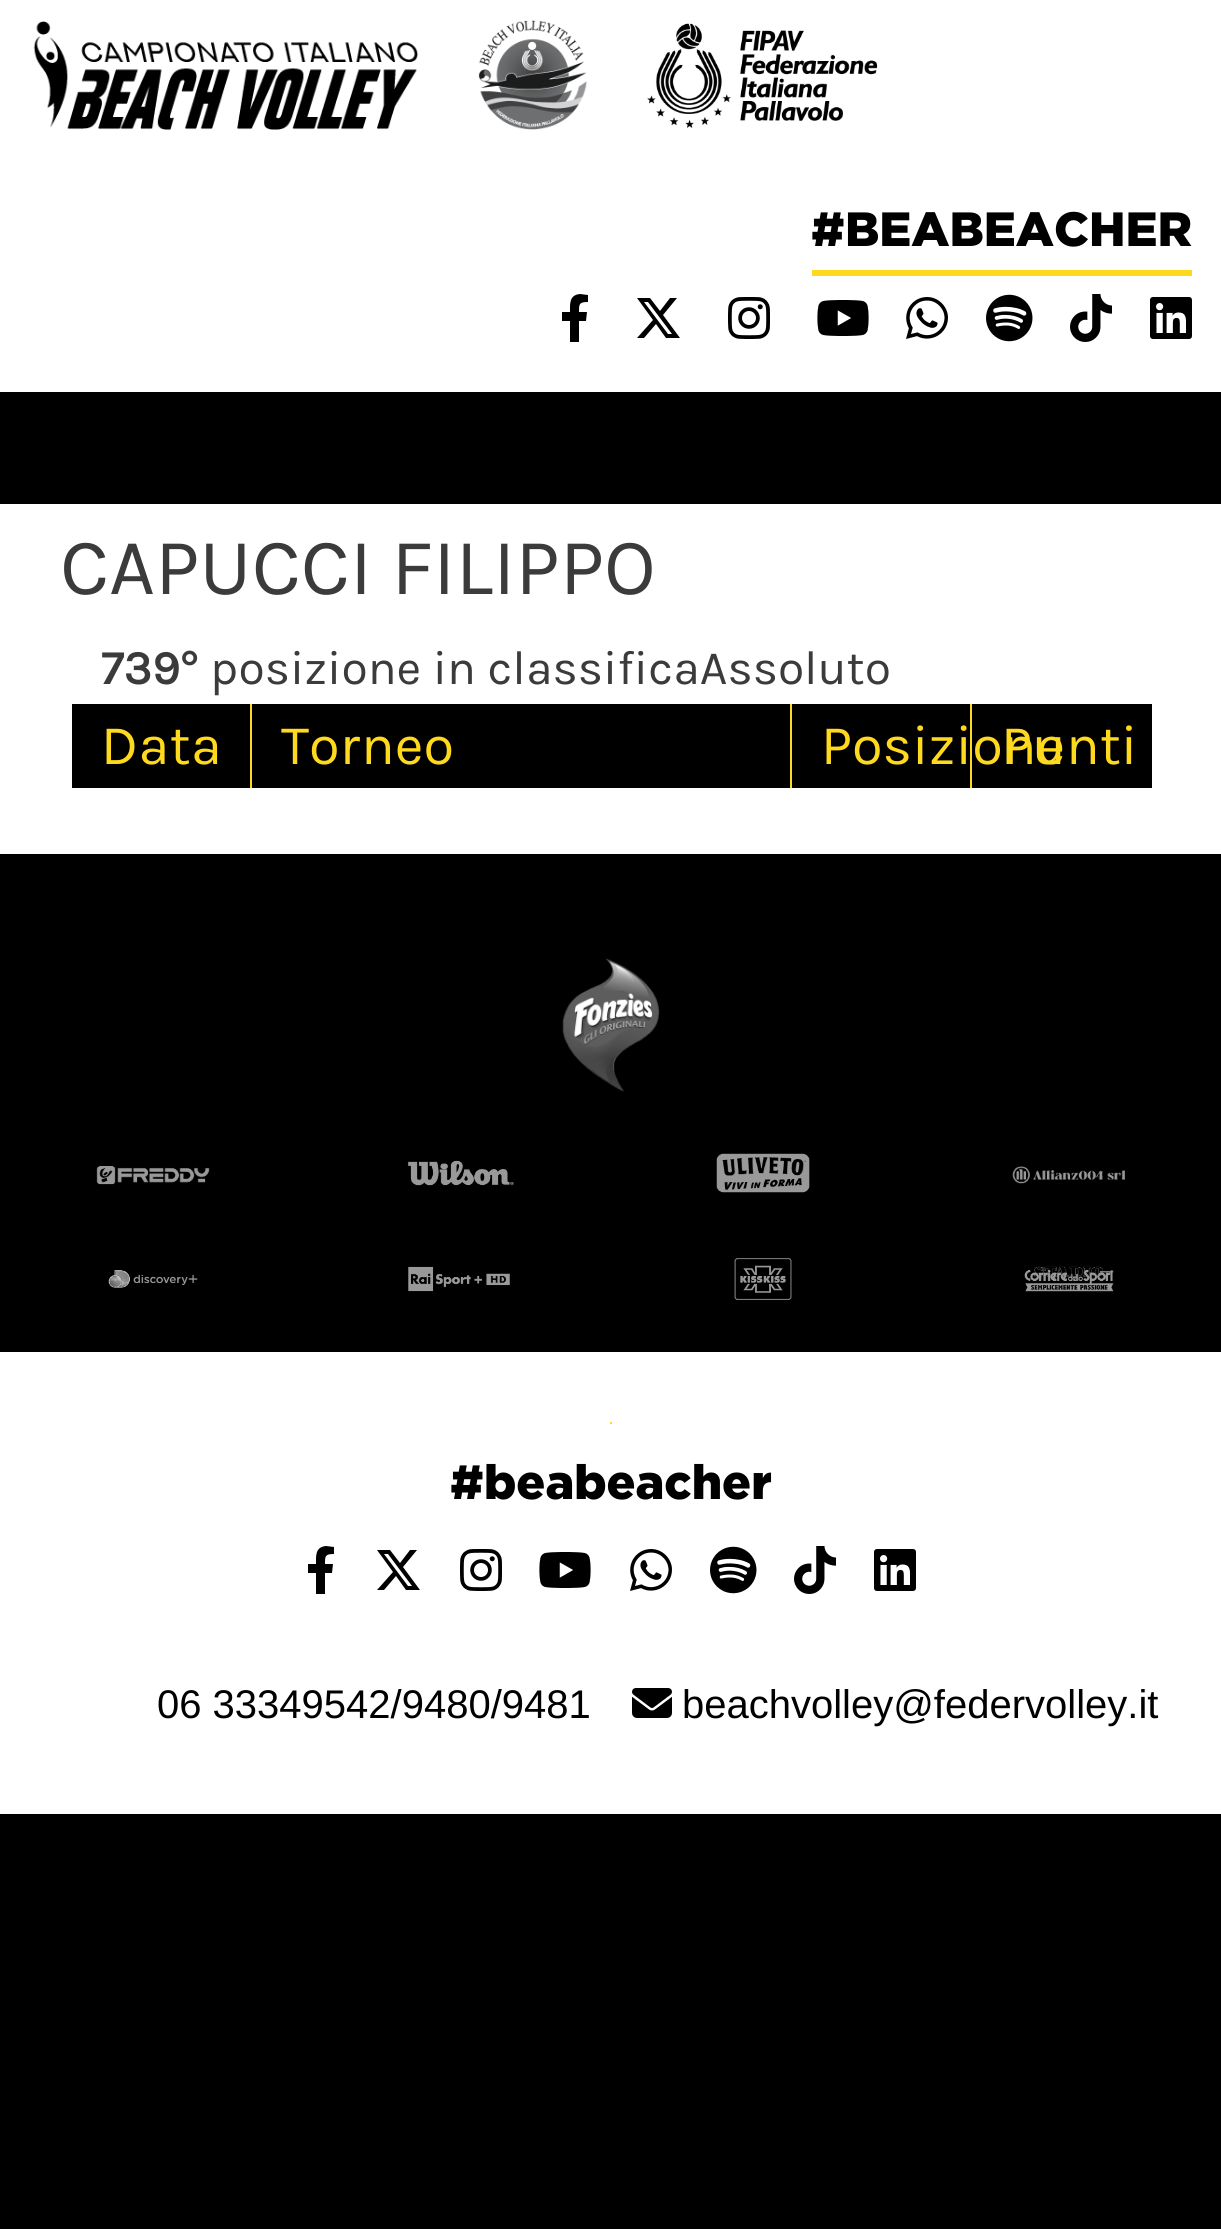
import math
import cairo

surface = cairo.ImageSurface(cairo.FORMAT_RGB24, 1221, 2229)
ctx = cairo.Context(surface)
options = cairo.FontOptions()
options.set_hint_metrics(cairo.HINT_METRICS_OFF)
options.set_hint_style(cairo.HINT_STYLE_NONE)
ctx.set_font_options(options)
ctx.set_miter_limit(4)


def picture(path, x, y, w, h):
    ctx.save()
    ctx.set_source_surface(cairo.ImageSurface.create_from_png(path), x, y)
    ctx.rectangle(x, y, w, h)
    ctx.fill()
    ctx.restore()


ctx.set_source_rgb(0, 0, 0)
ctx.paint()
ctx.set_source_rgb(1, 1, 1)
ctx.rectangle(0, 0, 1221, 1814)
ctx.fill()
picture("img1.png", 33, 21, 386, 109)
picture("img2.png", 478, 20, 109, 110)
picture("img3.png", 647, 23, 231, 105)
ctx.select_font_face("Gotham Black")
ctx.set_font_size(48)
ctx.set_source_rgb(0, 0, 0)
ctx.move_to(811, 246)
ctx.show_text("#BEABEACHER")
ctx.set_source_rgb(1, 0.851, 0.114)
ctx.rectangle(812, 270, 380, 6)
ctx.fill()
ctx.set_source_rgb(0, 0, 0)
ctx.new_path()
ctx.move_to(586, 321)
ctx.line_to(587, 312)
ctx.line_to(579, 312)
ctx.curve_to(579, 304, 579, 302, 588, 302)
ctx.line_to(588, 295)
ctx.line_to(580, 294)
ctx.curve_to(569, 295, 570, 304, 570, 312)
ctx.line_to(562, 312)
ctx.line_to(562, 321)
ctx.line_to(570, 321)
ctx.line_to(570, 342)
ctx.line_to(579, 342)
ctx.line_to(579, 321)
ctx.close_path()
ctx.fill()
ctx.new_path()
ctx.move_to(670, 298)
ctx.line_to(677, 298)
ctx.line_to(663, 315)
ctx.line_to(680, 338)
ctx.line_to(666, 338)
ctx.line_to(656, 324)
ctx.line_to(644, 338)
ctx.line_to(637, 338)
ctx.line_to(653, 320)
ctx.line_to(637, 298)
ctx.line_to(650, 298)
ctx.line_to(660, 311)
ctx.close_path()
ctx.move_to(668, 334)
ctx.line_to(672, 334)
ctx.line_to(648, 302)
ctx.line_to(644, 302)
ctx.close_path()
ctx.fill()
picture("img4.png", 728, 297, 42, 42)
picture("img5.png", 817, 300, 52, 36)
picture("img6.png", 906, 297, 42, 42)
picture("img7.png", 986, 294, 47, 48)
picture("img8.png", 1070, 294, 42, 48)
picture("img9.png", 1150, 297, 42, 42)
ctx.rectangle(0, 392, 1221, 112)
ctx.fill()
ctx.select_font_face("Karla")
ctx.set_font_size(80)
ctx.set_source_rgb(0.231, 0.231, 0.231)
ctx.move_to(60, 594)
ctx.show_text("CAPUCCI FILIPPO")
ctx.select_font_face("Karla", cairo.FONT_SLANT_NORMAL, cairo.FONT_WEIGHT_BOLD)
ctx.set_font_size(48)
ctx.move_to(101, 684)
ctx.show_text("739")
ctx.select_font_face("Liberation Sans", cairo.FONT_SLANT_NORMAL, cairo.FONT_WEIGHT_BOLD)
ctx.move_to(180, 684)
ctx.show_text("°")
ctx.select_font_face("Karla")
ctx.move_to(210, 684)
ctx.show_text("posizione in classificaAssoluto")
ctx.set_source_rgb(0, 0, 0)
ctx.rectangle(72, 704, 1080, 84)
ctx.fill()
ctx.set_source_rgb(1, 0.851, 0.114)
ctx.rectangle(250, 704, 2, 84)
ctx.fill()
ctx.set_font_size(56)
ctx.move_to(101, 764)
ctx.show_text("Data")
ctx.rectangle(790, 704, 2, 84)
ctx.fill()
ctx.move_to(281, 764)
ctx.show_text("Torneo")
ctx.rectangle(970, 704, 2, 84)
ctx.fill()
ctx.move_to(821, 764)
ctx.show_text("Posizione")
ctx.move_to(1001, 764)
ctx.show_text("Punti")
ctx.set_source_rgb(0, 0, 0)
ctx.rectangle(0, 854, 1221, 498)
ctx.fill()
picture("img10.png", 562, 958, 98, 134)
picture("img11.png", 96, 1166, 114, 19)
picture("img12.png", 407, 1160, 107, 26)
picture("img13.png", 716, 1153, 94, 40)
picture("img14.png", 1012, 1166, 114, 18)
picture("img15.png", 108, 1270, 90, 18)
picture("img16.png", 408, 1266, 102, 26)
picture("img17.png", 734, 1258, 58, 42)
picture("img18.png", 1024, 1266, 90, 26)
ctx.set_source_rgb(1, 0.851, 0.114)
ctx.rectangle(610, 1422, 2, 2)
ctx.fill()
ctx.select_font_face("Gotham Black")
ctx.set_font_size(48)
ctx.set_source_rgb(0, 0, 0)
ctx.move_to(450, 1499)
ctx.show_text("#beabeacher")
ctx.new_path()
ctx.move_to(332, 1573)
ctx.line_to(333, 1564)
ctx.line_to(325, 1564)
ctx.curve_to(325, 1556, 325, 1554, 334, 1554)
ctx.line_to(334, 1547)
ctx.line_to(326, 1546)
ctx.curve_to(315, 1547, 316, 1556, 316, 1564)
ctx.line_to(308, 1564)
ctx.line_to(308, 1573)
ctx.line_to(316, 1573)
ctx.line_to(316, 1594)
ctx.line_to(325, 1594)
ctx.line_to(325, 1573)
ctx.close_path()
ctx.fill()
ctx.new_path()
ctx.move_to(410, 1550)
ctx.line_to(417, 1550)
ctx.line_to(403, 1567)
ctx.line_to(420, 1590)
ctx.line_to(406, 1590)
ctx.line_to(396, 1576)
ctx.line_to(384, 1590)
ctx.line_to(377, 1590)
ctx.line_to(393, 1572)
ctx.line_to(377, 1550)
ctx.line_to(390, 1550)
ctx.line_to(400, 1563)
ctx.close_path()
ctx.move_to(408, 1586)
ctx.line_to(412, 1586)
ctx.line_to(388, 1554)
ctx.line_to(384, 1554)
ctx.close_path()
ctx.fill()
picture("img4.png", 460, 1549, 42, 42)
picture("img5.png", 539, 1552, 52, 36)
picture("img6.png", 630, 1549, 42, 42)
picture("img7.png", 710, 1546, 47, 48)
picture("img8.png", 794, 1546, 42, 48)
picture("img9.png", 874, 1549, 42, 42)
ctx.select_font_face("Liberation Sans")
ctx.set_font_size(40)
ctx.move_to(157, 1718)
ctx.show_text("06 33349542/9480/9481")
picture("img19.png", 632, 1688, 40, 30)
ctx.move_to(682, 1718)
ctx.show_text("beachvolley@federvolley.it")
surface.write_to_png("page.png")
